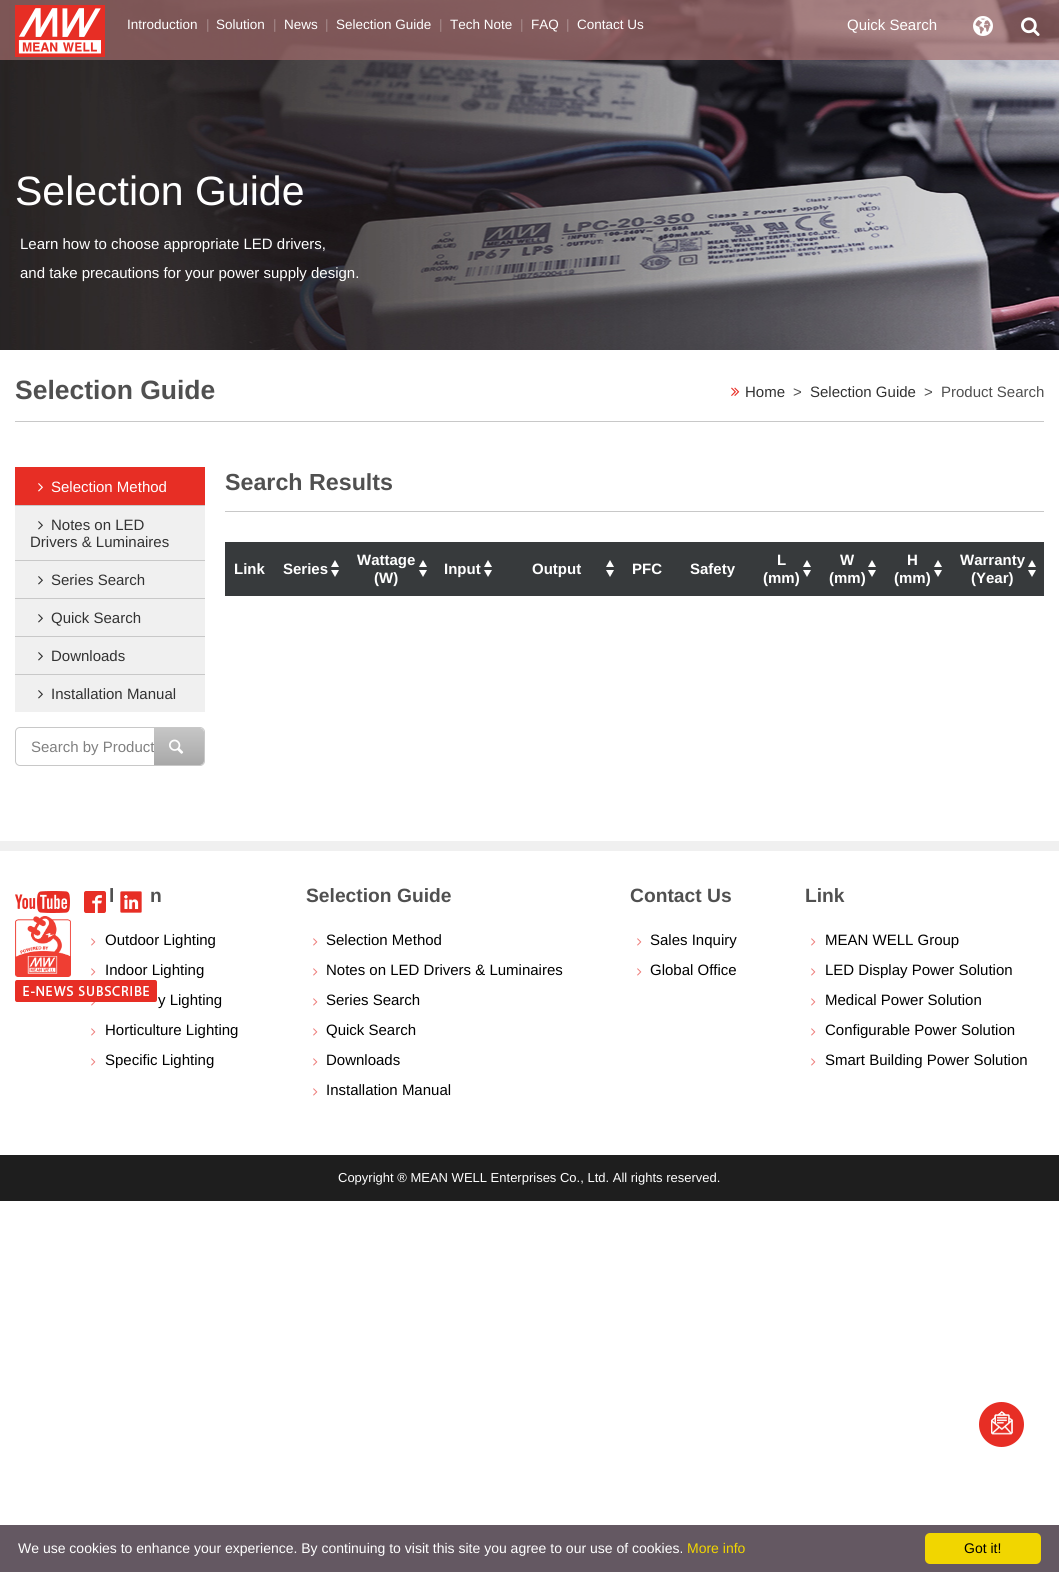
import math
import cairo

surface = cairo.ImageSurface(cairo.FORMAT_RGB24, 1059, 1572)
ctx = cairo.Context(surface)
options = cairo.FontOptions()
options.set_hint_metrics(cairo.HINT_METRICS_OFF)
options.set_hint_style(cairo.HINT_STYLE_NONE)
ctx.set_font_options(options)
ctx.set_miter_limit(4)


def round_rect(x, y, w, h, r):
    ctx.new_sub_path()
    for i, (u, v) in enumerate([(x + w - r, y + h - r), (x + r, y + h - r), (x + r, y + r), (x + w - r, y + r)]):
        ctx.arc(u, v, r, i * math.pi / 2, (i + 1) * math.pi / 2)
    ctx.close_path()


def picture(path, x, y, w, h):
    ctx.save()
    ctx.set_source_surface(cairo.ImageSurface.create_from_png(path), x, y)
    ctx.rectangle(x, y, w, h)
    ctx.fill()
    ctx.restore()


ctx.set_source_rgb(1, 1, 1)
ctx.paint()
picture("img4.png", 0, 0, 1059, 350)
ctx.set_source_rgba(0.635, 0.42, 0.42, 0.7)
ctx.rectangle(0, 0, 1059, 60)
ctx.fill()
picture("img1.png", 15, 5, 90, 52)
ctx.select_font_face("Liberation Sans")
ctx.set_font_size(13.5)
ctx.set_source_rgb(1, 1, 1)
ctx.move_to(127, 29)
ctx.show_text("Introduction")
ctx.set_source_rgb(0.647, 0.537, 0.537)
ctx.move_to(206, 29)
ctx.show_text("|")
ctx.set_source_rgb(1, 1, 1)
ctx.move_to(216, 29)
ctx.show_text("Solution")
ctx.set_source_rgb(0.647, 0.537, 0.537)
ctx.move_to(273, 29)
ctx.show_text("|")
ctx.set_source_rgb(1, 1, 1)
ctx.move_to(284, 29)
ctx.show_text("News")
ctx.set_source_rgb(0.647, 0.537, 0.537)
ctx.move_to(325, 29)
ctx.show_text("|")
ctx.set_source_rgb(1, 1, 1)
ctx.move_to(336, 29)
ctx.show_text("Selection Guide")
ctx.set_source_rgb(0.647, 0.537, 0.537)
ctx.move_to(439, 29)
ctx.show_text("|")
ctx.set_source_rgb(1, 1, 1)
ctx.move_to(450, 29)
ctx.show_text("Tech Note")
ctx.set_source_rgb(0.647, 0.537, 0.537)
ctx.move_to(520, 29)
ctx.show_text("|")
ctx.set_source_rgb(1, 1, 1)
ctx.move_to(531, 29)
ctx.show_text("FAQ")
ctx.set_source_rgb(0.667, 0.557, 0.561)
ctx.move_to(566, 29)
ctx.show_text("|")
ctx.set_source_rgb(1, 1, 1)
ctx.move_to(577, 29)
ctx.show_text("Contact Us")
ctx.set_font_size(15)
ctx.move_to(847, 30)
ctx.show_text("Quick Search")
picture("img2.png", 973, 16, 20, 20)
picture("img3.png", 1021, 17, 19, 19)
ctx.set_font_size(41)
ctx.move_to(15, 205)
ctx.show_text("Selection Guide")
ctx.set_font_size(15)
ctx.move_to(20, 249)
ctx.show_text("Learn how to choose appropriate LED drivers,")
ctx.move_to(20, 278)
ctx.show_text("and take precautions for your power supply design.")
ctx.set_source_rgb(0.784, 0.784, 0.784)
ctx.rectangle(15, 421, 1029, 1)
ctx.fill()
ctx.select_font_face("Liberation Sans", cairo.FONT_SLANT_NORMAL, cairo.FONT_WEIGHT_BOLD)
ctx.set_font_size(26.5)
ctx.set_source_rgb(0.314, 0.314, 0.314)
ctx.move_to(15, 399)
ctx.show_text("Selection Guide")
picture("img5.png", 731, 387, 9, 9)
ctx.select_font_face("Liberation Sans")
ctx.set_font_size(15)
ctx.set_source_rgb(0.196, 0.196, 0.196)
ctx.move_to(745, 397)
ctx.show_text("Home")
ctx.set_source_rgb(0.314, 0.314, 0.314)
ctx.move_to(793, 397)
ctx.show_text(">")
ctx.set_source_rgb(0.196, 0.196, 0.196)
ctx.move_to(810, 397)
ctx.show_text("Selection Guide")
ctx.set_source_rgb(0.314, 0.314, 0.314)
ctx.move_to(924, 397)
ctx.show_text(">")
ctx.move_to(941, 397)
ctx.show_text("Product Search")
ctx.set_source_rgb(0.906, 0.18, 0.145)
ctx.rectangle(15, 467, 190, 38)
ctx.fill()
picture("img6.png", 38, 483, 5, 9)
ctx.set_source_rgb(1, 1, 1)
ctx.move_to(51, 492)
ctx.show_text("Selection Method")
ctx.set_source_rgb(0.941, 0.941, 0.941)
ctx.rectangle(15, 506, 190, 54)
ctx.fill()
ctx.set_source_rgb(0.784, 0.784, 0.784)
ctx.rectangle(15, 505, 190, 1)
ctx.fill()
picture("img7.png", 38, 521, 5, 9)
ctx.set_source_rgb(0.196, 0.196, 0.196)
ctx.move_to(51, 530)
ctx.show_text("Notes on LED")
ctx.move_to(30, 547)
ctx.show_text("Drivers & Luminaires")
ctx.set_source_rgb(0.941, 0.941, 0.941)
ctx.rectangle(15, 561, 190, 37)
ctx.fill()
ctx.set_source_rgb(0.784, 0.784, 0.784)
ctx.rectangle(15, 560, 190, 1)
ctx.fill()
picture("img7.png", 38, 576, 5, 9)
ctx.set_source_rgb(0.196, 0.196, 0.196)
ctx.move_to(51, 585)
ctx.show_text("Series Search")
ctx.set_source_rgb(0.941, 0.941, 0.941)
ctx.rectangle(15, 599, 190, 37)
ctx.fill()
ctx.set_source_rgb(0.784, 0.784, 0.784)
ctx.rectangle(15, 598, 190, 1)
ctx.fill()
picture("img7.png", 38, 614, 5, 9)
ctx.set_source_rgb(0.196, 0.196, 0.196)
ctx.move_to(51, 623)
ctx.show_text("Quick Search")
ctx.set_source_rgb(0.941, 0.941, 0.941)
ctx.rectangle(15, 637, 190, 37)
ctx.fill()
ctx.set_source_rgb(0.784, 0.784, 0.784)
ctx.rectangle(15, 636, 190, 1)
ctx.fill()
picture("img7.png", 38, 652, 5, 9)
ctx.set_source_rgb(0.196, 0.196, 0.196)
ctx.move_to(51, 661)
ctx.show_text("Downloads")
ctx.set_source_rgb(0.941, 0.941, 0.941)
ctx.rectangle(15, 675, 190, 37)
ctx.fill()
ctx.set_source_rgb(0.784, 0.784, 0.784)
ctx.rectangle(15, 674, 190, 1)
ctx.fill()
picture("img7.png", 38, 690, 5, 9)
ctx.set_source_rgb(0.196, 0.196, 0.196)
ctx.move_to(51, 699)
ctx.show_text("Installation Manual")
round_rect(15.5, 727.5, 189, 38, 4.5)
ctx.set_source_rgb(0.784, 0.784, 0.784)
ctx.set_line_width(1)
ctx.stroke()
ctx.set_source_rgb(0.502, 0.502, 0.502)
ctx.move_to(31, 752)
ctx.show_text("Search by Product")
gradient = cairo.LinearGradient(179, 728, 179, 765)
gradient.add_color_stop_rgba(0, 0.776, 0.776, 0.776, 1)
gradient.add_color_stop_rgba(1, 0.659, 0.659, 0.659, 1)
ctx.set_source(gradient)
ctx.new_path()
ctx.move_to(154, 728)
ctx.line_to(200, 728)
ctx.curve_to(202, 728, 204, 730, 204, 732)
ctx.line_to(204, 761)
ctx.curve_to(204, 763, 202, 765, 200, 765)
ctx.line_to(154, 765)
ctx.close_path()
ctx.fill()
picture("img8.png", 169, 739, 15, 15)
ctx.set_source_rgb(0.784, 0.784, 0.784)
ctx.rectangle(225, 511, 819, 1)
ctx.fill()
ctx.select_font_face("Liberation Sans", cairo.FONT_SLANT_NORMAL, cairo.FONT_WEIGHT_BOLD)
ctx.set_font_size(23.25)
ctx.set_source_rgb(0.314, 0.314, 0.314)
ctx.move_to(225, 490)
ctx.show_text("Search Results")
ctx.set_source_rgb(0.216, 0.227, 0.235)
ctx.rectangle(225, 542, 819, 54)
ctx.fill()
ctx.set_font_size(15)
ctx.set_source_rgb(1, 1, 1)
ctx.move_to(234, 574)
ctx.show_text("Link")
ctx.move_to(283, 574)
ctx.show_text("Series")
ctx.new_path()
ctx.move_to(331, 570)
ctx.line_to(339, 570)
ctx.line_to(335, 577)
ctx.close_path()
ctx.move_to(339, 567)
ctx.line_to(331, 567)
ctx.line_to(335, 560)
ctx.close_path()
ctx.fill()
ctx.move_to(357, 565)
ctx.show_text("Wattage")
ctx.new_path()
ctx.move_to(419, 570)
ctx.line_to(427, 570)
ctx.line_to(423, 577)
ctx.close_path()
ctx.move_to(427, 567)
ctx.line_to(419, 567)
ctx.line_to(423, 560)
ctx.close_path()
ctx.fill()
ctx.move_to(374, 583)
ctx.show_text("(W)")
ctx.move_to(444, 574)
ctx.show_text("Input")
ctx.new_path()
ctx.move_to(484, 570)
ctx.line_to(492, 570)
ctx.line_to(488, 577)
ctx.close_path()
ctx.move_to(492, 567)
ctx.line_to(484, 567)
ctx.line_to(488, 560)
ctx.close_path()
ctx.fill()
ctx.move_to(532, 574)
ctx.show_text("Output")
ctx.new_path()
ctx.move_to(606, 570)
ctx.line_to(614, 570)
ctx.line_to(610, 577)
ctx.close_path()
ctx.move_to(614, 567)
ctx.line_to(606, 567)
ctx.line_to(610, 560)
ctx.close_path()
ctx.fill()
ctx.move_to(632, 574)
ctx.show_text("PFC")
ctx.move_to(690, 574)
ctx.show_text("Safety")
ctx.move_to(777, 565)
ctx.show_text("L")
ctx.new_path()
ctx.move_to(803, 570)
ctx.line_to(811, 570)
ctx.line_to(807, 577)
ctx.close_path()
ctx.move_to(811, 567)
ctx.line_to(803, 567)
ctx.line_to(807, 560)
ctx.close_path()
ctx.fill()
ctx.move_to(763, 583)
ctx.show_text("(mm)")
ctx.move_to(840, 565)
ctx.show_text("W")
ctx.new_path()
ctx.move_to(868, 570)
ctx.line_to(876, 570)
ctx.line_to(872, 577)
ctx.close_path()
ctx.move_to(876, 567)
ctx.line_to(868, 567)
ctx.line_to(872, 560)
ctx.close_path()
ctx.fill()
ctx.move_to(829, 583)
ctx.show_text("(mm)")
ctx.move_to(907, 565)
ctx.show_text("H")
ctx.new_path()
ctx.move_to(934, 570)
ctx.line_to(942, 570)
ctx.line_to(938, 577)
ctx.close_path()
ctx.move_to(942, 567)
ctx.line_to(934, 567)
ctx.line_to(938, 560)
ctx.close_path()
ctx.fill()
ctx.move_to(894, 583)
ctx.show_text("(mm)")
ctx.move_to(960, 565)
ctx.show_text("Warranty")
ctx.new_path()
ctx.move_to(1028, 570)
ctx.line_to(1036, 570)
ctx.line_to(1032, 577)
ctx.close_path()
ctx.move_to(1036, 567)
ctx.line_to(1028, 567)
ctx.line_to(1032, 560)
ctx.close_path()
ctx.fill()
ctx.move_to(971, 583)
ctx.show_text("(Year)")
ctx.set_source_rgb(0.941, 0.941, 0.941)
ctx.rectangle(0, 841, 1059, 10)
ctx.fill()
picture("img9.png", 15, 891, 55, 22)
picture("img10.png", 84, 891, 22, 22)
picture("img11.png", 120, 891, 22, 22)
picture("img12.png", 15, 916, 56, 61)
picture("img13.png", 15, 980, 142, 22)
ctx.set_font_size(19.25)
ctx.set_source_rgb(0.314, 0.314, 0.314)
ctx.move_to(109, 902)
ctx.show_text("l")
ctx.move_to(150, 902)
ctx.show_text("n")
picture("img14.png", 91, 938, 5, 8)
ctx.select_font_face("Liberation Sans")
ctx.set_font_size(15)
ctx.set_source_rgb(0, 0, 0)
ctx.move_to(105, 945)
ctx.show_text("Outdoor Lighting")
picture("img14.png", 91, 968, 5, 8)
ctx.move_to(105, 975)
ctx.show_text("Indoor Lighting")
picture("img15.png", 91, 1002, 5, 4)
ctx.move_to(158, 1005)
ctx.show_text("y Lighting")
picture("img14.png", 91, 1028, 5, 8)
ctx.move_to(105, 1035)
ctx.show_text("Horticulture Lighting")
picture("img14.png", 91, 1058, 5, 8)
ctx.move_to(105, 1065)
ctx.show_text("Specific Lighting")
ctx.select_font_face("Liberation Sans", cairo.FONT_SLANT_NORMAL, cairo.FONT_WEIGHT_BOLD)
ctx.set_font_size(19.25)
ctx.set_source_rgb(0.314, 0.314, 0.314)
ctx.move_to(306, 902)
ctx.show_text("Selection Guide")
picture("img14.png", 313, 938, 5, 8)
ctx.select_font_face("Liberation Sans")
ctx.set_font_size(15)
ctx.set_source_rgb(0, 0, 0)
ctx.move_to(326, 945)
ctx.show_text("Selection Method")
picture("img14.png", 313, 968, 5, 8)
ctx.move_to(326, 975)
ctx.show_text("Notes on LED Drivers & Luminaires")
picture("img14.png", 313, 998, 5, 8)
ctx.move_to(326, 1005)
ctx.show_text("Series Search")
picture("img14.png", 313, 1028, 5, 8)
ctx.move_to(326, 1035)
ctx.show_text("Quick Search")
picture("img14.png", 313, 1058, 5, 8)
ctx.move_to(326, 1065)
ctx.show_text("Downloads")
picture("img14.png", 313, 1088, 5, 8)
ctx.move_to(326, 1095)
ctx.show_text("Installation Manual")
ctx.select_font_face("Liberation Sans", cairo.FONT_SLANT_NORMAL, cairo.FONT_WEIGHT_BOLD)
ctx.set_font_size(19.25)
ctx.set_source_rgb(0.314, 0.314, 0.314)
ctx.move_to(630, 902)
ctx.show_text("Contact Us")
picture("img14.png", 637, 938, 5, 8)
ctx.select_font_face("Liberation Sans")
ctx.set_font_size(15)
ctx.set_source_rgb(0, 0, 0)
ctx.move_to(650, 945)
ctx.show_text("Sales Inquiry")
picture("img14.png", 637, 968, 5, 8)
ctx.move_to(650, 975)
ctx.show_text("Global Office")
ctx.select_font_face("Liberation Sans", cairo.FONT_SLANT_NORMAL, cairo.FONT_WEIGHT_BOLD)
ctx.set_font_size(19.25)
ctx.set_source_rgb(0.314, 0.314, 0.314)
ctx.move_to(805, 902)
ctx.show_text("Link")
picture("img14.png", 811, 938, 5, 8)
ctx.select_font_face("Liberation Sans")
ctx.set_font_size(15)
ctx.set_source_rgb(0, 0, 0)
ctx.move_to(825, 945)
ctx.show_text("MEAN WELL Group")
picture("img14.png", 811, 968, 5, 8)
ctx.move_to(825, 975)
ctx.show_text("LED Display Power Solution")
picture("img14.png", 811, 998, 5, 8)
ctx.move_to(825, 1005)
ctx.show_text("Medical Power Solution")
picture("img14.png", 811, 1028, 5, 8)
ctx.move_to(825, 1035)
ctx.show_text("Configurable Power Solution")
picture("img14.png", 811, 1058, 5, 8)
ctx.move_to(825, 1065)
ctx.show_text("Smart Building Power Solution")
ctx.set_source_rgb(0.118, 0.118, 0.118)
ctx.rectangle(0, 1155, 1059, 46)
ctx.fill()
ctx.set_font_size(13)
ctx.set_source_rgb(1, 1, 1)
ctx.move_to(338, 1182)
ctx.show_text("Copyright ® MEAN WELL Enterprises Co., Ltd. All rights reserved.")
ctx.set_source_rgb(0.906, 0.18, 0.145)
ctx.new_path()
ctx.arc(1001.5, 1424.5, 22.5, 0, 2 * math.pi)
ctx.fill()
picture("img16.png", 991, 1411, 22, 24)
ctx.set_source_rgb(0.392, 0.345, 0.384)
ctx.rectangle(0, 1525, 1059, 47)
ctx.fill()
ctx.set_font_size(14)
ctx.set_source_rgb(1, 1, 1)
ctx.move_to(18, 1553)
ctx.show_text("We use cookies to enhance your experience. By continuing to visit this site you agree to our use of cookies.")
ctx.set_source_rgb(0.945, 0.839, 0)
ctx.move_to(687, 1553)
ctx.show_text("More info")
round_rect(925, 1533, 116, 31, 5)
ctx.fill()
ctx.set_source_rgb(0, 0, 0)
ctx.move_to(964, 1553)
ctx.show_text("Got it!")
surface.write_to_png("page.png")
